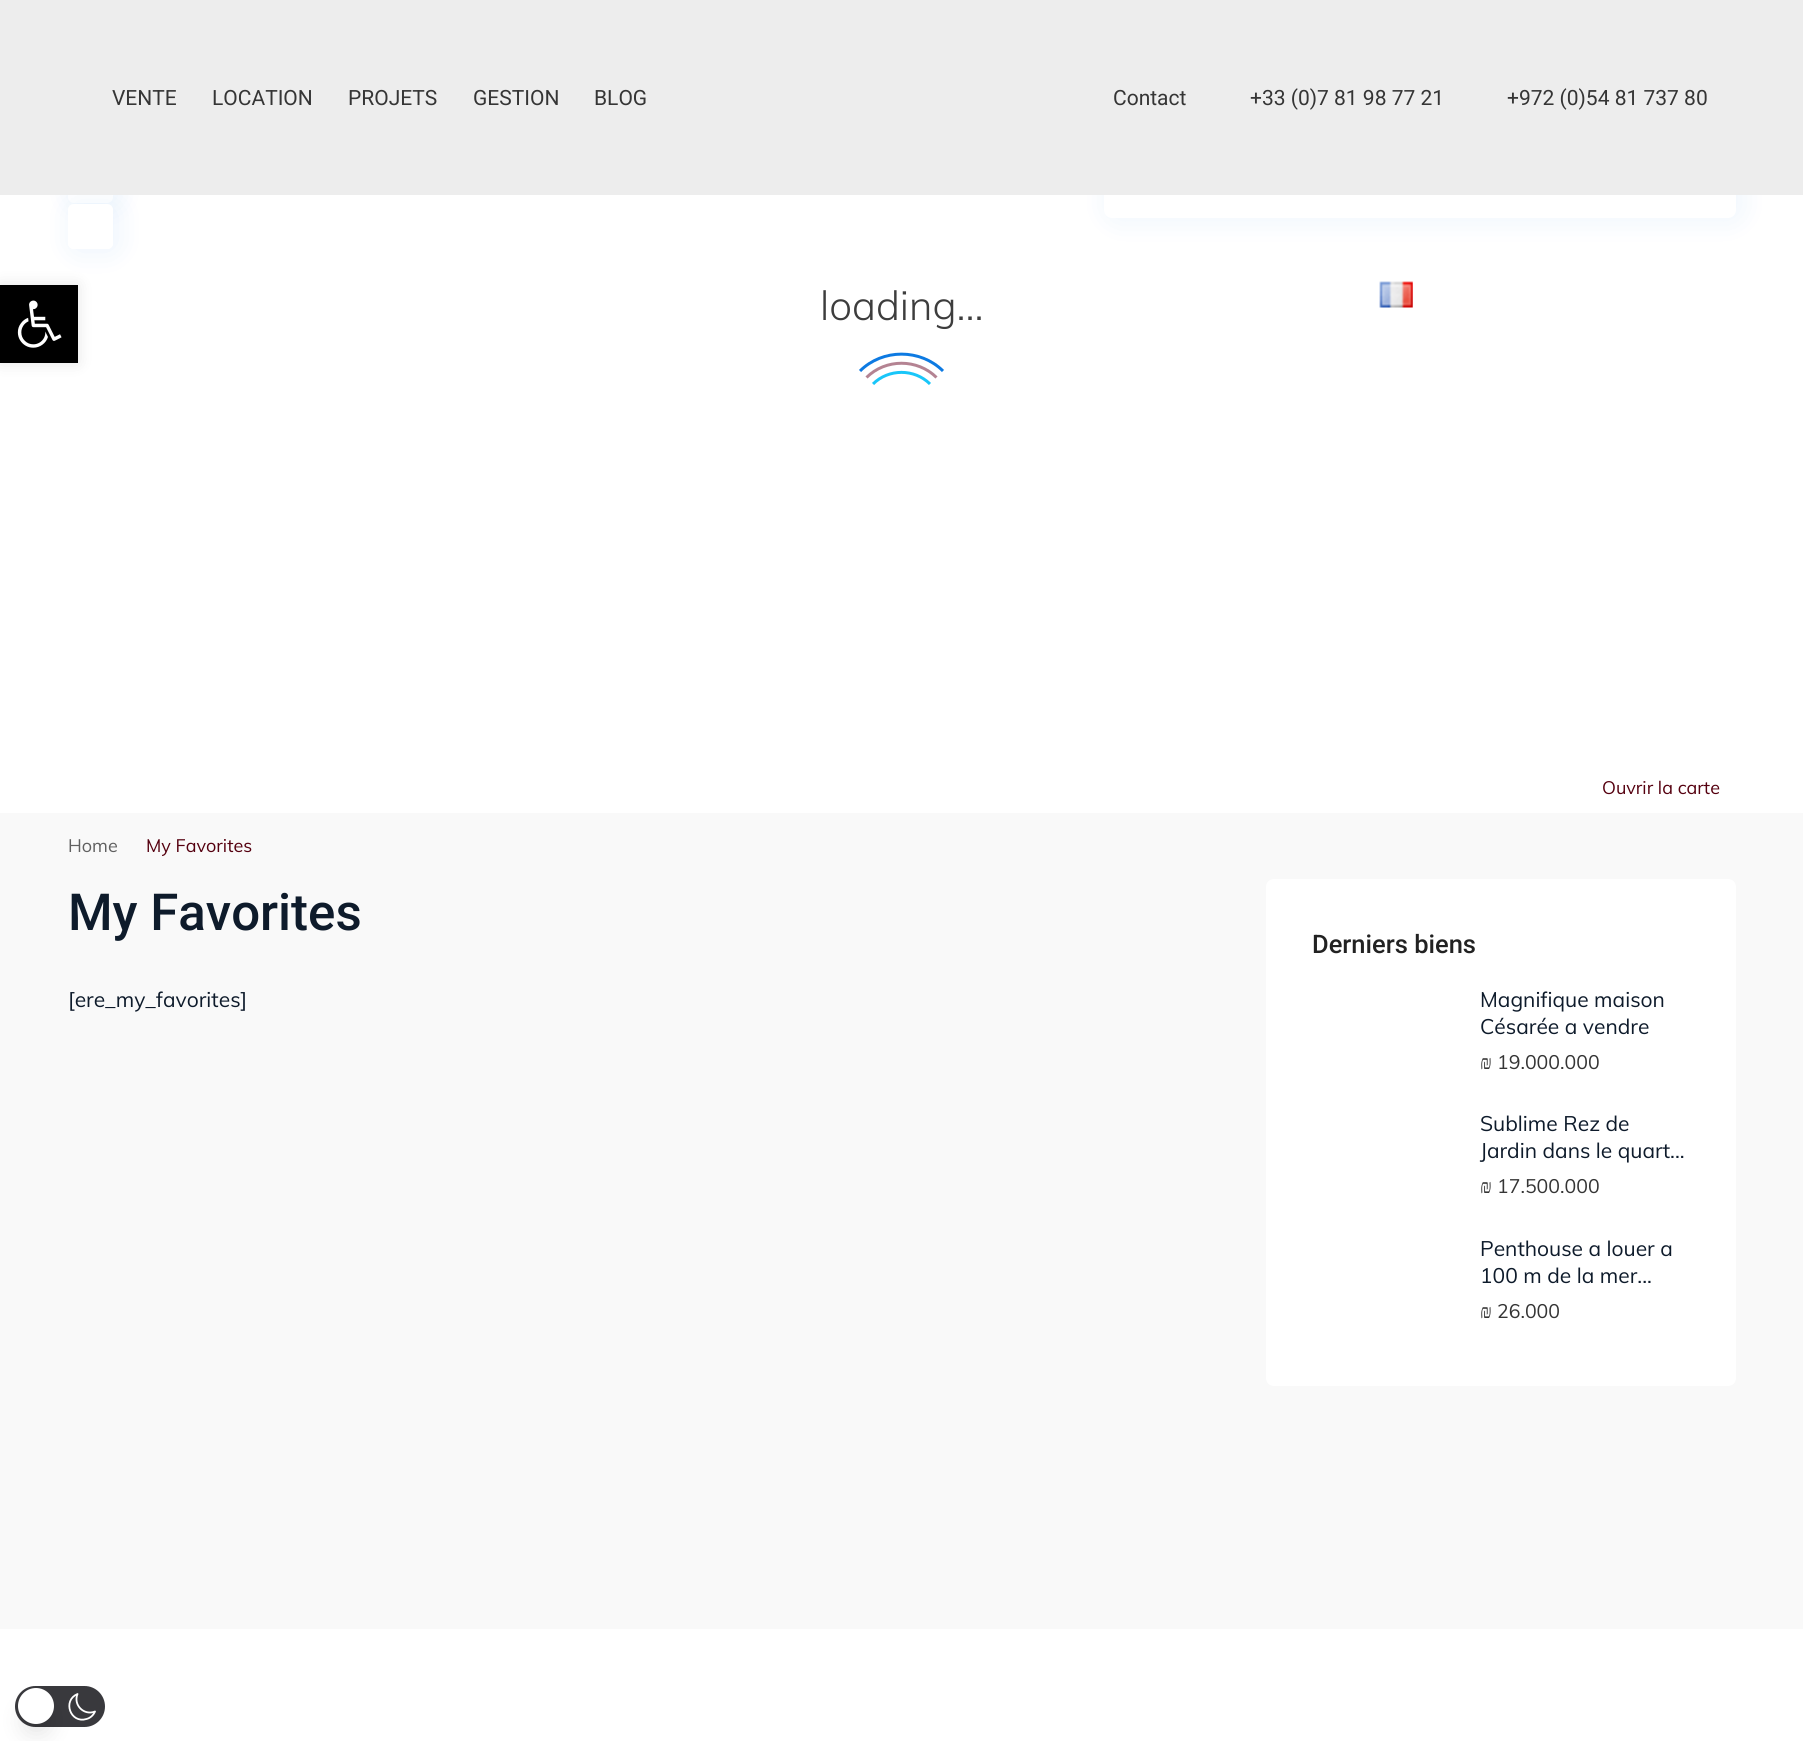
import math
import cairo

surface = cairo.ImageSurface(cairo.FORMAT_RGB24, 1803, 1741)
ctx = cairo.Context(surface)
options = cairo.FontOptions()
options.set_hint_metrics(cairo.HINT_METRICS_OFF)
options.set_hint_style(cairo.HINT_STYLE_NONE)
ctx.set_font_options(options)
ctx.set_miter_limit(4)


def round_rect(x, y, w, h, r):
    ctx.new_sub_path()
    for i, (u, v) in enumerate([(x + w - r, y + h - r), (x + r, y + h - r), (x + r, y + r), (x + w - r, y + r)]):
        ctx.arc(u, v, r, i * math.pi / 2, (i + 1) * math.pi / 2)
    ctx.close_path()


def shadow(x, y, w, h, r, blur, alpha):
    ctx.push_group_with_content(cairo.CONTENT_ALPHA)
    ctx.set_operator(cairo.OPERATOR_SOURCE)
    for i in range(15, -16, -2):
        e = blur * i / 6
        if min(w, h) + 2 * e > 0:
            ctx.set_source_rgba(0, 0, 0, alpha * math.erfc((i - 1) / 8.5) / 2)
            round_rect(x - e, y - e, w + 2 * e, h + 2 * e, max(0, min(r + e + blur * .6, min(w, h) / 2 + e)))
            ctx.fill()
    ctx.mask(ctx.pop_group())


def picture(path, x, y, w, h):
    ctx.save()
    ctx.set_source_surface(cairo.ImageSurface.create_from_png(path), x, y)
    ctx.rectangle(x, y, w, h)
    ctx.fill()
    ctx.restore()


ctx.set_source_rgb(1, 1, 1)
ctx.paint()
ctx.set_source_rgb(0, 0, 0)
shadow(0, 285, 78, 78, 0, 7.5, 0.1)
ctx.set_source_rgb(0.051, 0.459, 0.886)
shadow(72, 159, 45, 45, 6, 15, 0.08)
ctx.set_source_rgb(1, 1, 1)
round_rect(68, 158, 45, 45, 6)
ctx.fill()
ctx.save()
ctx.set_fill_rule(cairo.FILL_RULE_EVEN_ODD)
ctx.new_path()
ctx.move_to(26, 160)
ctx.line_to(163, 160)
ctx.line_to(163, 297)
ctx.line_to(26, 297)
ctx.close_path()
ctx.move_to(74, 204)
ctx.line_to(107, 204)
ctx.curve_to(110.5, 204, 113, 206.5, 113, 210)
ctx.line_to(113, 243)
ctx.curve_to(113, 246.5, 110.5, 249, 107, 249)
ctx.line_to(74, 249)
ctx.curve_to(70.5, 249, 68, 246.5, 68, 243)
ctx.line_to(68, 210)
ctx.curve_to(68, 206.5, 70.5, 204, 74, 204)
ctx.close_path()
ctx.clip()
ctx.set_source_rgb(0, 0.431, 0.882)
shadow(72, 206, 45, 45, 6, 15, 0.08)
ctx.restore()
ctx.set_source_rgb(0, 0, 0)
ctx.rectangle(0, 285, 78, 78)
ctx.fill()
picture("img1.png", 17, 300, 45, 48)
ctx.set_source_rgb(0.051, 0.459, 0.886)
shadow(1109, 159, 631, 60, 8, 15, 0.08)
ctx.set_source_rgb(1, 1, 1)
round_rect(1104, 158, 632, 60, 8)
ctx.fill()
ctx.set_source_rgb(0.929, 0.929, 0.929)
ctx.rectangle(0, 0, 1803, 195)
ctx.fill()
ctx.select_font_face("Roboto")
ctx.set_font_size(21)
ctx.set_source_rgb(0.208, 0.208, 0.208)
ctx.move_to(112, 105)
ctx.show_text("VENTE")
ctx.move_to(212, 105)
ctx.show_text("LOCATION")
ctx.move_to(348, 105)
ctx.show_text("PROJETS")
ctx.move_to(473, 105)
ctx.show_text("GESTION")
ctx.move_to(594, 105)
ctx.show_text("BLOG")
ctx.move_to(1113, 105)
ctx.show_text("Contact")
ctx.move_to(1250, 105)
ctx.show_text("+33 (0)7 81 98 77 21")
ctx.move_to(1507, 105)
ctx.show_text("+972 (0)54 81 737 80")
picture("img2.png", 1379, 281, 34, 27)
ctx.select_font_face("Muli Light")
ctx.set_font_size(40.5)
ctx.set_source_rgb(0.239, 0.239, 0.239)
ctx.move_to(820, 320)
ctx.show_text("loading...")
ctx.new_path()
ctx.move_to(860, 371)
ctx.curve_to(882.5, 348.5, 920.5, 348.5, 943, 371)
ctx.set_source_rgb(0.051, 0.478, 0.886)
ctx.set_line_width(3)
ctx.stroke()
ctx.new_path()
ctx.move_to(866.5, 377.5)
ctx.curve_to(885.5, 358.5, 917.5, 358.5, 936.5, 377.5)
ctx.set_source_rgb(0.706, 0.514, 0.573)
ctx.stroke()
ctx.new_path()
ctx.move_to(873, 384)
ctx.curve_to(888.5, 368.5, 914.5, 368.5, 930, 384)
ctx.set_source_rgb(0.098, 0.776, 0.973)
ctx.stroke()
ctx.set_source_rgba(1, 1, 1, 0.95)
round_rect(68, 204, 45, 45, 6)
ctx.fill()
ctx.select_font_face("Muli")
ctx.set_font_size(18)
ctx.set_source_rgb(0.333, 0, 0.059)
ctx.move_to(1602, 794)
ctx.show_text("Ouvrir la carte")
ctx.set_source_rgb(0.973, 0.973, 0.973)
ctx.rectangle(0, 813, 1803, 816)
ctx.fill()
ctx.set_source_rgb(0.376, 0.376, 0.376)
ctx.move_to(68, 852)
ctx.show_text("Home")
ctx.set_source_rgb(0.333, 0, 0.059)
ctx.move_to(146, 852)
ctx.show_text("My Favorites")
ctx.select_font_face("Roboto Medium")
ctx.set_font_size(51)
ctx.set_source_rgb(0.055, 0.106, 0.169)
ctx.move_to(68, 930)
ctx.show_text("My Favorites")
ctx.select_font_face("Muli")
ctx.set_font_size(21)
ctx.move_to(68, 1007)
ctx.show_text("[ere_my_favorites]")
ctx.set_source_rgb(1, 1, 1)
ctx.new_path()
ctx.move_to(1274, 879)
ctx.line_to(1728, 879)
ctx.curve_to(1732.5, 879, 1736, 882.5, 1736, 887)
ctx.line_to(1736, 1008)
ctx.line_to(1266, 1008)
ctx.line_to(1266, 887)
ctx.curve_to(1266, 882.5, 1269.5, 879, 1274, 879)
ctx.close_path()
ctx.fill()
ctx.select_font_face("Roboto Medium")
ctx.set_font_size(25.5)
ctx.set_source_rgb(0.133, 0.133, 0.133)
ctx.move_to(1312, 953)
ctx.show_text("Derniers biens")
ctx.set_source_rgb(1, 1, 1)
ctx.new_path()
ctx.move_to(1266, 986)
ctx.line_to(1736, 986)
ctx.line_to(1736, 1378)
ctx.curve_to(1736, 1382.5, 1732.5, 1386, 1728, 1386)
ctx.line_to(1274, 1386)
ctx.curve_to(1269.5, 1386, 1266, 1382.5, 1266, 1378)
ctx.close_path()
ctx.fill()
ctx.select_font_face("Muli")
ctx.set_font_size(21)
ctx.set_source_rgb(0.055, 0.106, 0.169)
ctx.move_to(1480, 1007)
ctx.show_text("Magnifique maison")
ctx.move_to(1480, 1034)
ctx.show_text("Césarée a vendre")
ctx.select_font_face("Liberation Serif")
ctx.set_font_size(19.5)
ctx.set_source_rgb(0.208, 0.208, 0.208)
ctx.move_to(1480, 1069)
ctx.show_text("₪")
ctx.select_font_face("Muli")
ctx.move_to(1497, 1069)
ctx.show_text("19.000.000")
ctx.set_font_size(21)
ctx.set_source_rgb(0.055, 0.106, 0.169)
ctx.move_to(1480, 1131)
ctx.show_text("Sublime Rez de")
ctx.move_to(1480, 1158)
ctx.show_text("Jardin dans le quart...")
ctx.select_font_face("Liberation Serif")
ctx.set_font_size(19.5)
ctx.set_source_rgb(0.208, 0.208, 0.208)
ctx.move_to(1480, 1193)
ctx.show_text("₪")
ctx.select_font_face("Muli")
ctx.move_to(1497, 1193)
ctx.show_text("17.500.000")
ctx.set_font_size(21)
ctx.set_source_rgb(0.055, 0.106, 0.169)
ctx.move_to(1480, 1256)
ctx.show_text("Penthouse a louer a")
ctx.move_to(1480, 1283)
ctx.show_text("100 m de la mer...")
ctx.select_font_face("Liberation Serif")
ctx.set_font_size(19.5)
ctx.set_source_rgb(0.208, 0.208, 0.208)
ctx.move_to(1480, 1318)
ctx.show_text("₪")
ctx.select_font_face("Muli")
ctx.move_to(1497, 1318)
ctx.show_text("26.000")
ctx.set_source_rgb(0.224, 0.224, 0.239)
round_rect(15, 1686, 90, 41, 20.5)
ctx.fill()
picture("img3.png", 51, 1714, 1, 1)
ctx.new_path()
ctx.move_to(95, 1711.5)
ctx.curve_to(84, 1716, 73, 1705, 77.5, 1694)
ctx.curve_to(62, 1700.5, 70.5, 1724, 86.5, 1719)
ctx.curve_to(90.5, 1718, 93.5, 1715, 95, 1711.5)
ctx.close_path()
ctx.set_source_rgb(1, 1, 1)
ctx.set_line_width(1.8)
ctx.set_line_cap(cairo.LINE_CAP_ROUND)
ctx.set_line_join(cairo.LINE_JOIN_ROUND)
ctx.stroke()
ctx.set_source_rgb(0, 0, 0)
shadow(23, 1707, 27, 27, 13.5, 11, 0.1)
ctx.set_source_rgb(1, 1, 1)
ctx.arc(36, 1706, 18, 0, 2 * math.pi)
ctx.fill()
surface.write_to_png("page.png")
